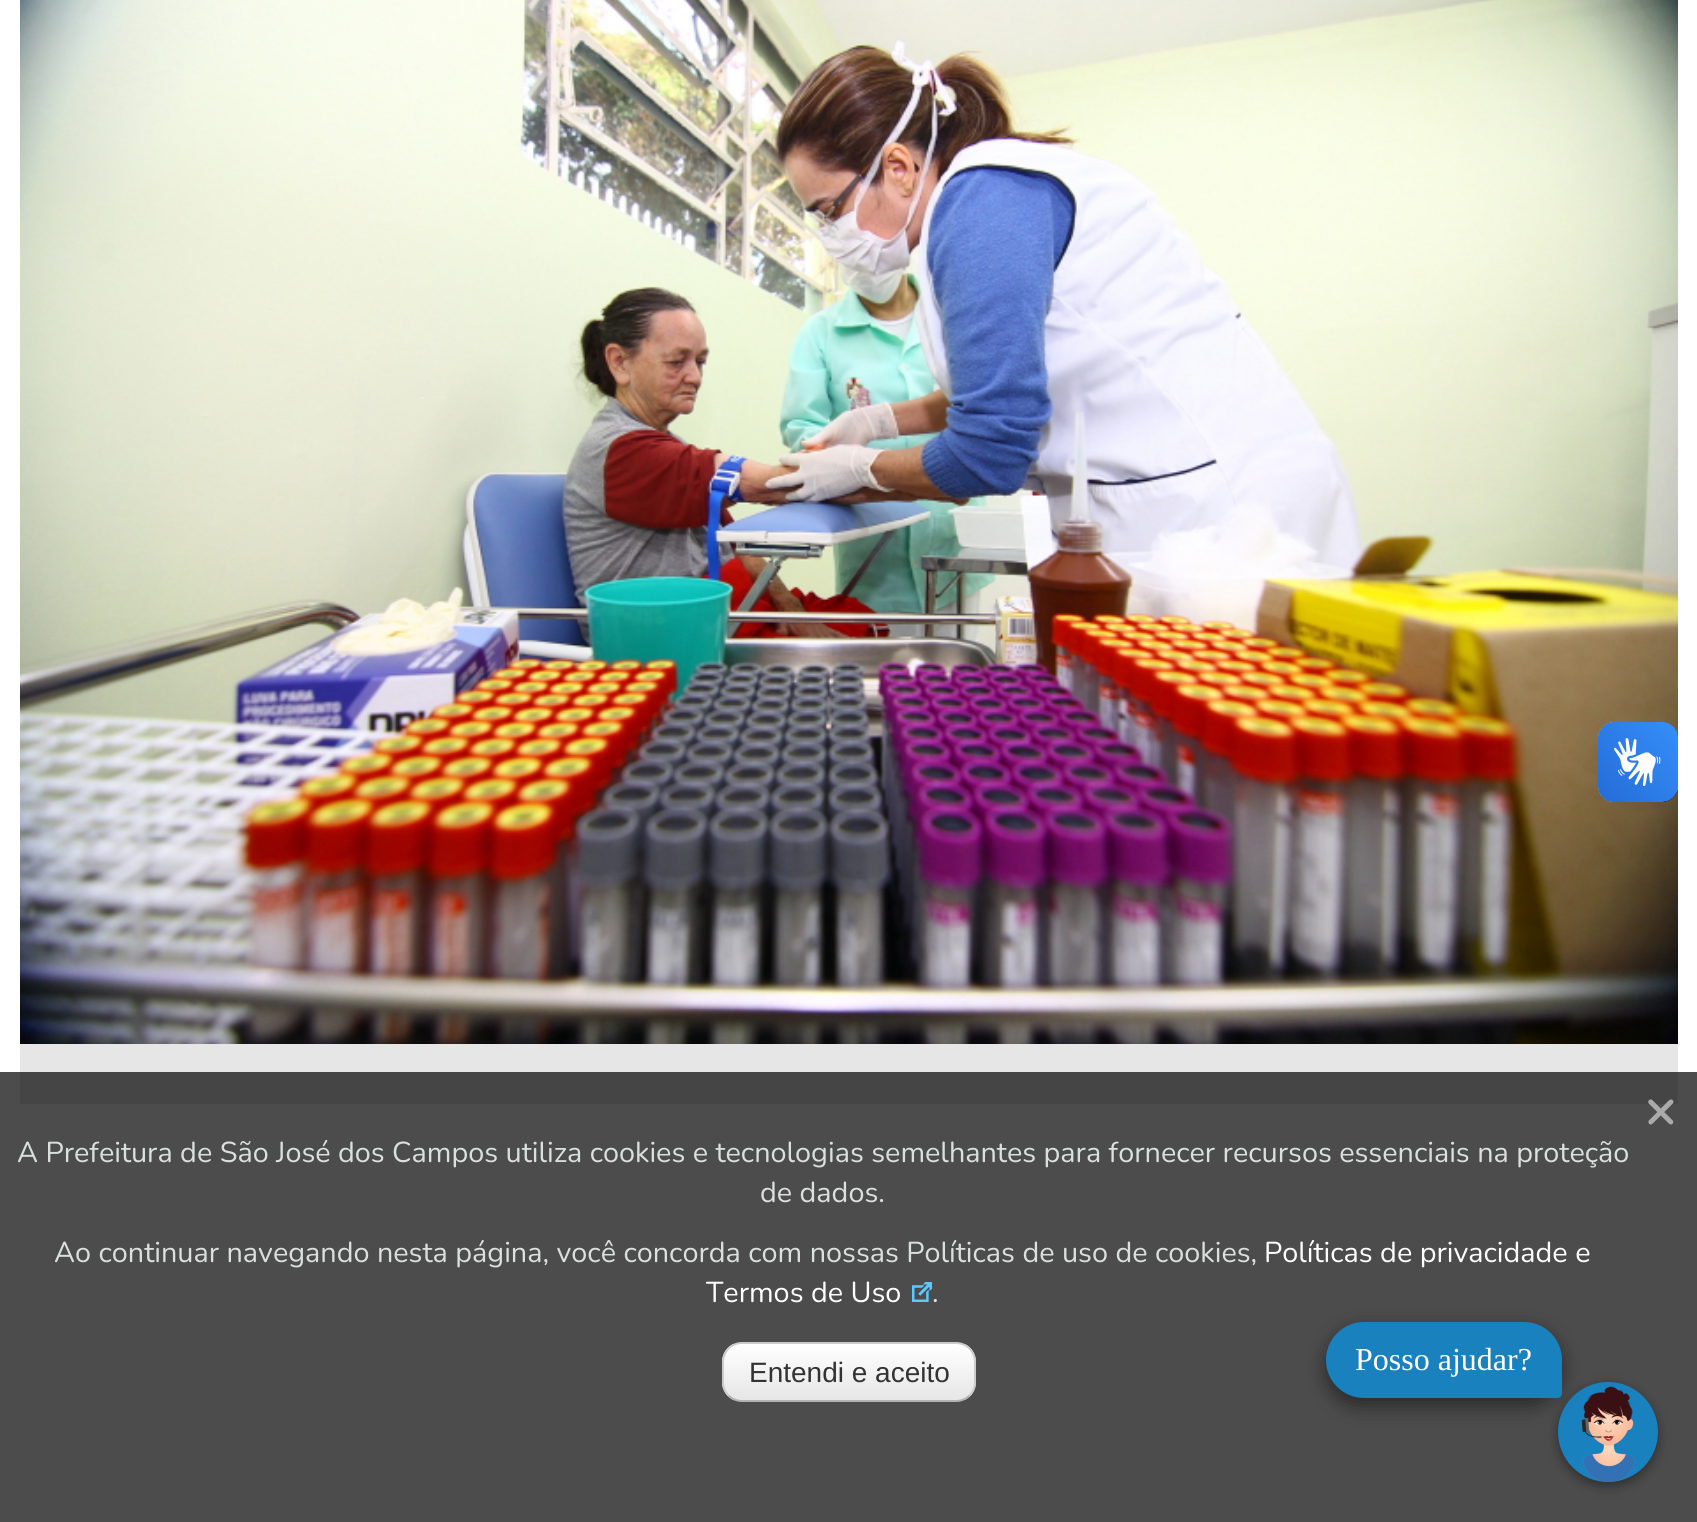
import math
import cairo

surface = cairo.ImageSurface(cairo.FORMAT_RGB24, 1697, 1522)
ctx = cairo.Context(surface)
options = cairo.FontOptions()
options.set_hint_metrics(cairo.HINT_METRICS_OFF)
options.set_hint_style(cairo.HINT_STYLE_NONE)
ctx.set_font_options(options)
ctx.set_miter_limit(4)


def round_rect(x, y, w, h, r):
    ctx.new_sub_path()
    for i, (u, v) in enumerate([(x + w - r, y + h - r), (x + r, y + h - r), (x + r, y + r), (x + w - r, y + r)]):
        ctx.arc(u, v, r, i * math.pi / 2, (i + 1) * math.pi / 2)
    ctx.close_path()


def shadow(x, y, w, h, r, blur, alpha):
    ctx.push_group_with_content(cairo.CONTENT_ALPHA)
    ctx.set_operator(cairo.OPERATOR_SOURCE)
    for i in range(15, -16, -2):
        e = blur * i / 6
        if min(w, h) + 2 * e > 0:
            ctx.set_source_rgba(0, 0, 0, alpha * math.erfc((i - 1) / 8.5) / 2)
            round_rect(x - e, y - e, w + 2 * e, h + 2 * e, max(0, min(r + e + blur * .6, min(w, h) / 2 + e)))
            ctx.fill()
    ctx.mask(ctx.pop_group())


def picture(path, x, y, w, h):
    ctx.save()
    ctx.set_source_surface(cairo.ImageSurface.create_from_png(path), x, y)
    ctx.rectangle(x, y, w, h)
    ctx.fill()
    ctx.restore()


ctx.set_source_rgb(1, 1, 1)
ctx.paint()
picture("img1.png", 20, 0, 1658, 1044)
ctx.set_source_rgb(0.902, 0.902, 0.902)
ctx.rectangle(20, 1044, 1658, 60)
ctx.fill()
picture("img2.png", 1598, 722, 80, 80)
picture("img3.png", 1598, 722, 80, 80)
ctx.set_source_rgba(0.004, 0.004, 0.004, 0.7)
ctx.rectangle(0, 1072, 1697, 450)
ctx.fill()
ctx.select_font_face("Nunito", cairo.FONT_SLANT_NORMAL, cairo.FONT_WEIGHT_BOLD)
ctx.set_font_size(56)
ctx.set_source_rgb(0.667, 0.667, 0.667)
ctx.move_to(1644, 1128)
ctx.show_text("×")
ctx.select_font_face("Nunito")
ctx.set_font_size(28.8)
ctx.set_source_rgb(0.859, 0.878, 0.875)
ctx.move_to(17, 1162)
ctx.show_text("A Prefeitura de São José dos Campos utiliza cookies e tecnologias semelhantes para fornecer recursos essenciais na proteção")
ctx.move_to(760, 1202)
ctx.show_text("de dados.")
ctx.move_to(54, 1262)
ctx.show_text("Ao continuar navegando nesta página, você concorda com nossas Políticas de uso de cookies,")
ctx.set_source_rgb(1, 1, 1)
ctx.move_to(1264, 1262)
ctx.show_text("Políticas de privacidade e")
ctx.move_to(706, 1302)
ctx.show_text("Termos de Uso")
picture("img4.png", 912, 1282, 20, 20)
ctx.set_source_rgb(0.859, 0.878, 0.875)
ctx.move_to(932, 1302)
ctx.show_text(".")
ctx.save()
round_rect(722, 1342, 254, 60, 20)
ctx.clip()
gradient = cairo.LinearGradient(849, 1344, 849, 1400)
gradient.add_color_stop_rgba(0, 1, 1, 1, 1)
gradient.add_color_stop_rgba(1, 0.902, 0.902, 0.902, 1)
ctx.set_source(gradient)
ctx.rectangle(722, 1344, 254, 56)
ctx.fill()
ctx.restore()
ctx.new_path()
ctx.move_to(969.5, 1395.5)
ctx.curve_to(966, 1399, 961, 1401, 956, 1401)
ctx.line_to(742, 1401)
ctx.curve_to(737, 1401, 732, 1399, 728.5, 1395.5)
ctx.set_source_rgb(0.702, 0.702, 0.702)
ctx.stroke()
ctx.new_path()
ctx.move_to(728.5, 1395.5)
ctx.curve_to(725, 1392, 723, 1387, 723, 1382)
ctx.line_to(723, 1362)
ctx.curve_to(723, 1357, 725, 1352, 728.5, 1348.5)
ctx.curve_to(732, 1345, 737, 1343, 742, 1343)
ctx.line_to(956, 1343)
ctx.curve_to(961, 1343, 966, 1345, 969.5, 1348.5)
ctx.curve_to(973, 1352, 975, 1357, 975, 1362)
ctx.line_to(975, 1382)
ctx.curve_to(975, 1387, 973, 1392, 969.5, 1395.5)
ctx.set_source_rgb(0.8, 0.8, 0.8)
ctx.stroke()
ctx.select_font_face("Liberation Sans")
ctx.set_font_size(28)
ctx.set_source_rgb(0.2, 0.2, 0.2)
ctx.move_to(749, 1382)
ctx.show_text("Entendi e aceito")
ctx.set_source_rgb(0, 0, 0)
shadow(1558, 1386, 100, 100, 50, 6, 0.4)
ctx.set_source_rgb(0.098, 0.506, 0.745)
ctx.arc(1608, 1432, 50, 0, 2 * math.pi)
ctx.fill()
picture("img5.png", 1581, 1386, 54, 96)
ctx.set_source_rgb(0, 0, 0)
shadow(1326, 1330, 236, 76, 38, 10, 0.47)
ctx.set_source_rgb(0.098, 0.506, 0.745)
ctx.new_path()
ctx.move_to(1364, 1322)
ctx.line_to(1524, 1322)
ctx.curve_to(1545, 1322, 1562, 1339, 1562, 1360)
ctx.line_to(1562, 1393)
ctx.curve_to(1562, 1396, 1560, 1398, 1557, 1398)
ctx.line_to(1364, 1398)
ctx.curve_to(1343, 1398, 1326, 1381, 1326, 1360)
ctx.curve_to(1326, 1339, 1343, 1322, 1364, 1322)
ctx.close_path()
ctx.fill()
ctx.select_font_face("Liberation Serif")
ctx.set_font_size(32)
ctx.set_source_rgb(1, 1, 1)
ctx.move_to(1355, 1370)
ctx.show_text("Posso ajudar?")
surface.write_to_png("page.png")
